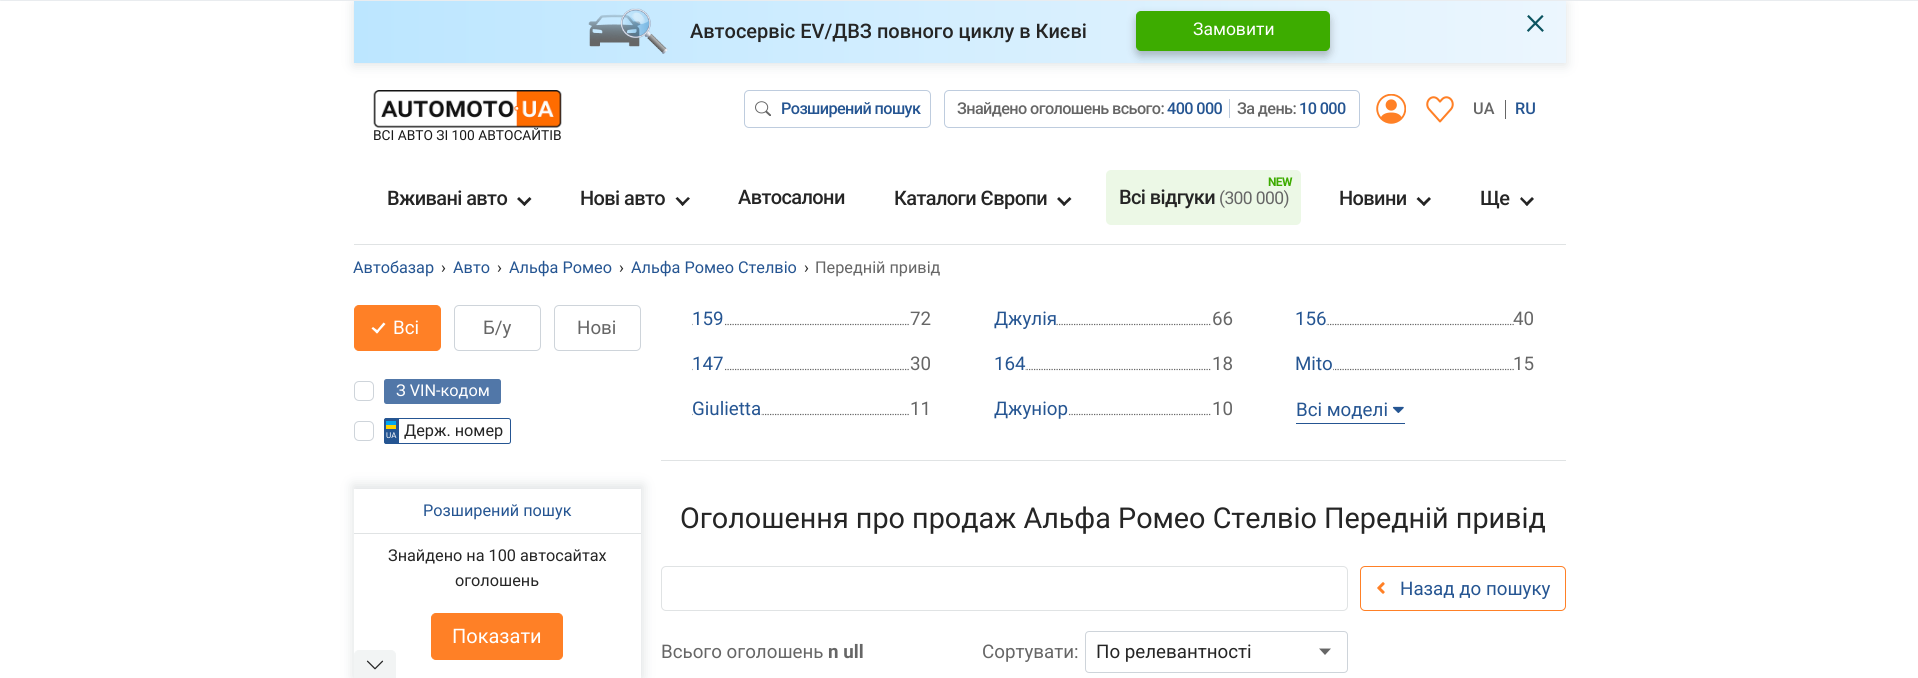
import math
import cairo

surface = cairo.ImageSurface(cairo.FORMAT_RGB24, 1918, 678)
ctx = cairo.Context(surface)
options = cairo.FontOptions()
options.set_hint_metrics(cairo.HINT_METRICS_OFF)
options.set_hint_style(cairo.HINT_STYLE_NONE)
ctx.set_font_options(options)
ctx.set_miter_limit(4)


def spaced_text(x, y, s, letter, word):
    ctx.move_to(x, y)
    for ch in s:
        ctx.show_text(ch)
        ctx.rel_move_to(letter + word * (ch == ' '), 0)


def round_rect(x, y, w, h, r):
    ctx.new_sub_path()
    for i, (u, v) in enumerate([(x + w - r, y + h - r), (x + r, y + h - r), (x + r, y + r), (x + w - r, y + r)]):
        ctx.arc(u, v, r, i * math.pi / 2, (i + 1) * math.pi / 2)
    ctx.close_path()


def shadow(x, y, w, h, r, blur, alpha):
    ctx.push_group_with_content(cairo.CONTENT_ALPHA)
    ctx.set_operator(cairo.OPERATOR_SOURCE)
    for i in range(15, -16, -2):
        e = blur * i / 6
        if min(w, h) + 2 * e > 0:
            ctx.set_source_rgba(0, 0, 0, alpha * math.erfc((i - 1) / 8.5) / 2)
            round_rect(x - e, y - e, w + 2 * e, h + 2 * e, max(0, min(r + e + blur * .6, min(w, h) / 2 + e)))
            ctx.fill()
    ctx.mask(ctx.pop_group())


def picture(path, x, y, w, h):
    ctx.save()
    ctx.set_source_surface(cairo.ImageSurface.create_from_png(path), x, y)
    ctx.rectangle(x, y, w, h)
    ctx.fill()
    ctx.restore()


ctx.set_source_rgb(1, 1, 1)
ctx.paint()
ctx.set_source_rgb(0.878, 0.89, 0.894)
shadow(354, 3, 1212, 62, 0, 6, 1)
ctx.set_source_rgb(0.914, 0.925, 0.937)
round_rect(0, 0, 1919, 1, 0.5)
ctx.fill()
gradient = cairo.LinearGradient(354, 31, 1566, 31)
gradient.add_color_stop_rgba(0, 0.737, 0.902, 1, 1)
gradient.add_color_stop_rgba(1, 0.925, 0.965, 0.996, 1)
ctx.set_source(gradient)
ctx.rectangle(354, 1, 1212, 62)
ctx.fill()
picture("img1.png", 588, 8, 80, 46)
ctx.select_font_face("Roboto Medium")
ctx.set_font_size(20)
ctx.set_source_rgb(0.145, 0.145, 0.145)
ctx.move_to(690, 38)
ctx.show_text("Автосервіс EV/ДВЗ повного циклу в Києві")
ctx.set_source_rgb(0, 0, 0)
shadow(1136, 16, 194, 40, 5, 4.5, 0.25)
ctx.set_source_rgb(0.239, 0.675, 0)
round_rect(1136.5, 11.5, 193, 39, 4.5)
ctx.fill_preserve()
ctx.set_line_width(1)
ctx.stroke()
ctx.select_font_face("Roboto")
ctx.set_font_size(17.5)
ctx.set_source_rgb(1, 1, 1)
ctx.move_to(1193, 35)
ctx.show_text("Замовити")
ctx.select_font_face("Roboto Light")
ctx.set_font_size(40)
ctx.set_source_rgb(0.047, 0.329, 0.376)
ctx.move_to(1525, 34)
ctx.show_text("×")
ctx.set_source_rgb(0.878, 0.89, 0.894)
ctx.rectangle(354, 244, 1212, 1)
ctx.fill()
round_rect(744.5, 90.5, 186, 37, 4.5)
ctx.set_source_rgb(0.745, 0.8, 0.871)
ctx.stroke()
picture("img2.png", 755, 101, 16, 15)
ctx.select_font_face("Roboto Medium")
ctx.set_font_size(16.25)
ctx.set_source_rgb(0.145, 0.333, 0.573)
spaced_text(781, 114, "Розширений пошук", -0.6, 0)
round_rect(944.5, 90.5, 415, 37, 4.5)
ctx.set_source_rgb(0.745, 0.8, 0.871)
ctx.stroke()
ctx.set_source_rgb(0.4, 0.4, 0.4)
spaced_text(957, 114, "Знайдено оголошень всього:", -0.6, 0)
ctx.set_source_rgb(0.145, 0.333, 0.573)
spaced_text(1167, 114, "400 000", -0.6, 0)
ctx.set_source_rgb(0.745, 0.8, 0.871)
ctx.rectangle(1229, 99, 1, 19)
ctx.fill()
ctx.set_source_rgb(0.4, 0.4, 0.4)
spaced_text(1237, 114, "За день:", -0.6, 0)
ctx.set_source_rgb(0.145, 0.333, 0.573)
spaced_text(1299, 114, "10 000", -0.6, 0)
picture("img3.png", 1376, 94, 30, 30)
picture("img4.png", 1426, 96, 28, 27)
ctx.set_source_rgb(0.4, 0.4, 0.4)
ctx.move_to(1473, 114)
ctx.show_text("UA")
ctx.rectangle(1505, 100, 1, 19)
ctx.fill()
ctx.set_source_rgb(0.145, 0.333, 0.573)
ctx.move_to(1515, 114)
ctx.show_text("RU")
picture("img5.png", 373, 90, 189, 38)
ctx.select_font_face("Roboto")
ctx.set_font_size(13.75)
ctx.set_source_rgb(0.098, 0.098, 0.098)
ctx.move_to(373, 140)
ctx.show_text("ВСІ АВТО ЗІ 100 АВТОСАЙТІВ")
ctx.select_font_face("Roboto Medium")
ctx.set_font_size(20)
ctx.set_source_rgb(0.145, 0.145, 0.145)
spaced_text(387, 205, "Вживані авто", -0.6, 0)
ctx.new_path()
ctx.move_to(531.5, 199)
ctx.line_to(524.5, 206)
ctx.line_to(522.5, 204)
ctx.line_to(529.5, 197)
ctx.close_path()
ctx.fill()
ctx.new_path()
ctx.move_to(526, 204)
ctx.line_to(524.5, 206)
ctx.line_to(517, 199)
ctx.line_to(519, 197)
ctx.close_path()
ctx.fill()
spaced_text(580, 205, "Нові авто", -0.6, 0)
ctx.new_path()
ctx.move_to(690, 198.5)
ctx.line_to(682.5, 206)
ctx.line_to(681, 204)
ctx.line_to(688, 197)
ctx.close_path()
ctx.fill()
ctx.new_path()
ctx.move_to(684.5, 204)
ctx.line_to(682.5, 206)
ctx.line_to(675.5, 198.5)
ctx.line_to(677.5, 197)
ctx.close_path()
ctx.fill()
spaced_text(738, 204, "Автосалони", -0.6, 0)
spaced_text(894, 205, "Каталоги Європи", -0.6, 0)
ctx.new_path()
ctx.move_to(1071.5, 199)
ctx.line_to(1064, 206)
ctx.line_to(1062.5, 204)
ctx.line_to(1069.5, 197)
ctx.close_path()
ctx.fill()
ctx.new_path()
ctx.move_to(1066, 204)
ctx.line_to(1064, 206)
ctx.line_to(1057, 199)
ctx.line_to(1059, 197)
ctx.close_path()
ctx.fill()
ctx.set_source_rgb(0.925, 0.969, 0.902)
round_rect(1106, 170, 195, 55, 5)
ctx.fill()
ctx.set_source_rgb(0.145, 0.145, 0.145)
spaced_text(1119, 204, "Всі відгуки", -0.6, 0)
ctx.select_font_face("Roboto", cairo.FONT_SLANT_NORMAL, cairo.FONT_WEIGHT_BOLD)
ctx.set_font_size(12)
ctx.set_source_rgb(0.239, 0.675, 0)
spaced_text(1268, 186, "NEW", -0.6, 0)
ctx.select_font_face("Roboto")
ctx.set_font_size(17.5)
ctx.set_source_rgb(0.4, 0.4, 0.4)
spaced_text(1219, 204, "(300 000)", -0.6, 0)
ctx.select_font_face("Roboto Medium")
ctx.set_font_size(20)
ctx.set_source_rgb(0.145, 0.145, 0.145)
spaced_text(1339, 205, "Новини", -0.6, 0)
ctx.new_path()
ctx.move_to(1431, 199)
ctx.line_to(1424, 206)
ctx.line_to(1422, 204)
ctx.line_to(1429, 197)
ctx.close_path()
ctx.fill()
ctx.new_path()
ctx.move_to(1425.5, 204)
ctx.line_to(1424, 206)
ctx.line_to(1416.5, 199)
ctx.line_to(1418.5, 197)
ctx.close_path()
ctx.fill()
spaced_text(1480, 205, "Ще", -0.6, 0)
ctx.new_path()
ctx.move_to(1534, 199)
ctx.line_to(1527, 206)
ctx.line_to(1525, 204)
ctx.line_to(1532, 197)
ctx.close_path()
ctx.fill()
ctx.new_path()
ctx.move_to(1528.5, 204)
ctx.line_to(1527, 206)
ctx.line_to(1520, 199)
ctx.line_to(1521.5, 197)
ctx.close_path()
ctx.fill()
ctx.select_font_face("Roboto")
ctx.set_font_size(16.25)
ctx.set_source_rgb(0.145, 0.333, 0.573)
ctx.move_to(353, 273)
ctx.show_text("Автобазар")
ctx.set_source_rgb(0.145, 0.145, 0.145)
ctx.move_to(441, 273)
ctx.show_text("›")
ctx.set_source_rgb(0.145, 0.333, 0.573)
ctx.move_to(453, 273)
ctx.show_text("Авто")
ctx.set_source_rgb(0.145, 0.145, 0.145)
ctx.move_to(497, 273)
ctx.show_text("›")
ctx.set_source_rgb(0.145, 0.333, 0.573)
ctx.move_to(509, 273)
ctx.show_text("Альфа Ромео")
ctx.set_source_rgb(0.145, 0.145, 0.145)
ctx.move_to(619, 273)
ctx.show_text("›")
ctx.set_source_rgb(0.145, 0.333, 0.573)
ctx.move_to(631, 273)
ctx.show_text("Альфа Ромео Стелвіо")
ctx.set_source_rgb(0.145, 0.145, 0.145)
ctx.move_to(804, 273)
ctx.show_text("›")
ctx.set_source_rgb(0.4, 0.4, 0.4)
ctx.move_to(815, 273)
ctx.show_text("Передній привід")
round_rect(661.5, 566.5, 686, 44, 4.5)
ctx.set_source_rgb(0.878, 0.89, 0.894)
ctx.stroke()
ctx.set_source_rgb(0.878, 0.89, 0.894)
shadow(353, 485, 290, 193, 0, 6, 1)
ctx.set_source_rgb(1, 1, 1)
ctx.rectangle(354, 489, 287, 189)
ctx.fill()
ctx.set_source_rgb(0.949, 0.957, 0.957)
ctx.new_path()
ctx.move_to(359, 650.5)
ctx.line_to(391, 650.5)
ctx.curve_to(393.5, 650.5, 395.5, 652.5, 395.5, 655)
ctx.line_to(395.5, 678.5)
ctx.line_to(354.5, 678.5)
ctx.line_to(354.5, 655)
ctx.curve_to(354.5, 652.5, 356.5, 650.5, 359, 650.5)
ctx.close_path()
ctx.fill_preserve()
ctx.stroke()
picture("img6.png", 366, 660, 18, 10)
ctx.set_source_rgb(1, 0.502, 0.149)
round_rect(354.5, 305.5, 86, 45, 4.5)
ctx.fill_preserve()
ctx.stroke()
ctx.set_source_rgb(1, 1, 1)
ctx.new_path()
ctx.move_to(383.5, 322.5)
ctx.line_to(385.5, 324)
ctx.line_to(377, 333.5)
ctx.line_to(375.5, 332)
ctx.close_path()
ctx.fill()
ctx.new_path()
ctx.move_to(373, 327)
ctx.line_to(379, 331.5)
ctx.line_to(377, 333.5)
ctx.line_to(371.5, 328.5)
ctx.close_path()
ctx.fill()
ctx.set_font_size(18.75)
ctx.move_to(393, 334)
ctx.show_text("Всі")
round_rect(454.5, 305.5, 86, 45, 4.5)
ctx.set_source_rgb(0.808, 0.831, 0.855)
ctx.stroke()
ctx.set_source_rgb(0.4, 0.4, 0.4)
ctx.move_to(483, 334)
ctx.show_text("Б/у")
round_rect(554.5, 305.5, 86, 45, 4.5)
ctx.set_source_rgb(0.808, 0.831, 0.855)
ctx.stroke()
ctx.set_source_rgb(0.4, 0.4, 0.4)
ctx.move_to(577, 334)
ctx.show_text("Нові")
round_rect(354.5, 381.5, 19, 19, 4.5)
ctx.set_source_rgb(0.808, 0.831, 0.855)
ctx.stroke()
ctx.set_source_rgb(0.318, 0.467, 0.659)
round_rect(384, 379, 117, 25, 2.5)
ctx.fill()
ctx.set_font_size(16.25)
ctx.set_source_rgb(1, 1, 1)
ctx.move_to(396, 396)
ctx.show_text("З VIN-кодом")
round_rect(354.5, 421.5, 19, 19, 4.5)
ctx.set_source_rgb(0.808, 0.831, 0.855)
ctx.stroke()
round_rect(384.5, 418.5, 126, 25, 2)
ctx.set_source_rgb(0.145, 0.333, 0.573)
ctx.stroke()
ctx.new_path()
ctx.move_to(386.5, 418)
ctx.line_to(399, 418)
ctx.line_to(399, 444)
ctx.line_to(386.5, 444)
ctx.curve_to(385, 444, 384, 443, 384, 441.5)
ctx.line_to(384, 420.5)
ctx.curve_to(384, 419, 385, 418, 386.5, 418)
ctx.close_path()
ctx.fill()
ctx.set_source_rgb(0, 0.655, 0.937)
ctx.rectangle(386, 421, 10, 4)
ctx.fill()
ctx.set_source_rgb(0.996, 0.835, 0)
ctx.rectangle(386, 425, 10, 4)
ctx.fill()
ctx.set_source_rgb(0.145, 0.145, 0.145)
ctx.move_to(404, 436)
ctx.show_text("Держ. номер")
ctx.set_font_size(8)
ctx.set_source_rgb(1, 1, 1)
ctx.move_to(386, 438)
ctx.show_text("UA")
ctx.set_font_size(16.25)
ctx.set_source_rgb(0.145, 0.333, 0.573)
ctx.move_to(423, 516)
ctx.show_text("Розширений пошук")
ctx.set_source_rgb(0.878, 0.89, 0.894)
ctx.rectangle(354, 533, 287, 1)
ctx.fill()
ctx.set_source_rgb(0.145, 0.145, 0.145)
ctx.move_to(388, 561)
ctx.show_text("Знайдено на 100 автосайтах")
ctx.move_to(455, 586)
ctx.show_text("оголошень")
ctx.set_source_rgb(1, 0.502, 0.149)
round_rect(431.5, 613.5, 131, 46, 4.5)
ctx.fill_preserve()
ctx.stroke()
ctx.set_font_size(20)
ctx.set_source_rgb(1, 1, 1)
ctx.move_to(452, 643)
ctx.show_text("Показати")
ctx.set_source_rgb(0.878, 0.89, 0.894)
ctx.rectangle(661, 460, 905, 1)
ctx.fill()
ctx.new_path()
ctx.move_to(692.5, 324.5)
ctx.line_to(931, 324.5)
ctx.set_source_rgb(0.4, 0.4, 0.4)
ctx.set_line_width(1.2)
ctx.set_dash([1.25, 1.25])
ctx.stroke()
ctx.set_source_rgb(1, 1, 1)
ctx.rectangle(693, 323, 31, 3)
ctx.fill()
ctx.set_font_size(18.75)
ctx.set_source_rgb(0.145, 0.333, 0.573)
ctx.move_to(692, 325)
ctx.show_text("159")
ctx.set_source_rgb(1, 1, 1)
ctx.rectangle(910, 323, 21, 3)
ctx.fill()
ctx.set_source_rgb(0.4, 0.4, 0.4)
ctx.move_to(910, 325)
ctx.show_text("72")
ctx.new_path()
ctx.move_to(994, 324.5)
ctx.line_to(1232.5, 324.5)
ctx.stroke()
ctx.set_source_rgb(1, 1, 1)
ctx.rectangle(994, 323, 62, 3)
ctx.fill()
ctx.set_source_rgb(0.145, 0.333, 0.573)
ctx.move_to(994, 325)
ctx.show_text("Джулія")
ctx.set_source_rgb(1, 1, 1)
ctx.rectangle(1211, 323, 22, 3)
ctx.fill()
ctx.set_source_rgb(0.4, 0.4, 0.4)
ctx.move_to(1212, 325)
ctx.show_text("66")
ctx.new_path()
ctx.move_to(1295, 324.5)
ctx.line_to(1534, 324.5)
ctx.stroke()
ctx.set_source_rgb(1, 1, 1)
ctx.rectangle(1295, 323, 31, 3)
ctx.fill()
ctx.set_source_rgb(0.145, 0.333, 0.573)
ctx.move_to(1295, 325)
ctx.show_text("156")
ctx.set_source_rgb(1, 1, 1)
ctx.rectangle(1515, 323, 19, 3)
ctx.fill()
ctx.set_source_rgb(0.4, 0.4, 0.4)
ctx.move_to(1513, 325)
ctx.show_text("40")
ctx.new_path()
ctx.move_to(692.5, 369.5)
ctx.line_to(931, 369.5)
ctx.stroke()
ctx.set_source_rgb(1, 1, 1)
ctx.rectangle(693, 368, 31, 3)
ctx.fill()
ctx.set_source_rgb(0.145, 0.333, 0.573)
ctx.move_to(692, 370)
ctx.show_text("147")
ctx.set_source_rgb(1, 1, 1)
ctx.rectangle(910, 368, 21, 3)
ctx.fill()
ctx.set_source_rgb(0.4, 0.4, 0.4)
ctx.move_to(910, 370)
ctx.show_text("30")
ctx.new_path()
ctx.move_to(994, 369.5)
ctx.line_to(1232.5, 369.5)
ctx.stroke()
ctx.set_source_rgb(1, 1, 1)
ctx.rectangle(994, 368, 31, 3)
ctx.fill()
ctx.set_source_rgb(0.145, 0.333, 0.573)
ctx.move_to(994, 370)
ctx.show_text("164")
ctx.set_source_rgb(1, 1, 1)
ctx.rectangle(1211, 368, 22, 3)
ctx.fill()
ctx.set_source_rgb(0.4, 0.4, 0.4)
ctx.move_to(1212, 370)
ctx.show_text("18")
ctx.new_path()
ctx.move_to(1295, 369.5)
ctx.line_to(1534, 369.5)
ctx.stroke()
ctx.set_source_rgb(1, 1, 1)
ctx.rectangle(1295, 368, 38, 3)
ctx.fill()
ctx.set_source_rgb(0.145, 0.333, 0.573)
ctx.move_to(1295, 370)
ctx.show_text("Mito")
ctx.set_source_rgb(1, 1, 1)
ctx.rectangle(1515, 368, 19, 3)
ctx.fill()
ctx.set_source_rgb(0.4, 0.4, 0.4)
ctx.move_to(1513, 370)
ctx.show_text("15")
ctx.new_path()
ctx.move_to(692.5, 414.5)
ctx.line_to(931, 414.5)
ctx.stroke()
ctx.set_source_rgb(1, 1, 1)
ctx.rectangle(693, 413, 68, 3)
ctx.fill()
ctx.set_source_rgb(0.145, 0.333, 0.573)
ctx.move_to(692, 415)
ctx.show_text("Giulietta")
ctx.set_source_rgb(1, 1, 1)
ctx.rectangle(910, 413, 21, 3)
ctx.fill()
ctx.set_source_rgb(0.4, 0.4, 0.4)
ctx.move_to(910, 415)
ctx.show_text("11")
ctx.new_path()
ctx.move_to(994, 414.5)
ctx.line_to(1232.5, 414.5)
ctx.stroke()
ctx.set_source_rgb(1, 1, 1)
ctx.rectangle(994, 413, 74, 3)
ctx.fill()
ctx.set_source_rgb(0.145, 0.333, 0.573)
ctx.move_to(994, 415)
ctx.show_text("Джуніор")
ctx.set_source_rgb(1, 1, 1)
ctx.rectangle(1211, 413, 22, 3)
ctx.fill()
ctx.set_source_rgb(0.4, 0.4, 0.4)
ctx.move_to(1212, 415)
ctx.show_text("10")
ctx.set_source_rgb(0.145, 0.333, 0.573)
ctx.move_to(1296, 416)
ctx.show_text("Всі моделі")
picture("img7.png", 1392, 406, 12, 7)
ctx.rectangle(1296, 423, 109, 1)
ctx.fill()
ctx.set_font_size(28.75)
ctx.set_source_rgb(0.145, 0.145, 0.145)
ctx.move_to(680, 528)
ctx.show_text("Оголошення про продаж Альфа Ромео Стелвіо Передній привід")
round_rect(1360.5, 566.5, 205, 44, 4.5)
ctx.set_source_rgb(1, 0.502, 0.149)
ctx.set_line_width(1)
ctx.set_dash([])
ctx.stroke()
picture("img8.png", 1377, 582, 8, 12)
ctx.set_font_size(18.75)
ctx.set_source_rgb(0.145, 0.333, 0.573)
ctx.move_to(1400, 595)
ctx.show_text("Назад до пошуку")
ctx.set_source_rgb(0.4, 0.4, 0.4)
ctx.move_to(661, 658)
ctx.show_text("Всього оголошень")
ctx.select_font_face("Roboto", cairo.FONT_SLANT_NORMAL, cairo.FONT_WEIGHT_BOLD)
ctx.move_to(828, 658)
ctx.show_text("n ull")
ctx.select_font_face("Roboto")
ctx.move_to(982, 658)
ctx.show_text("Сортувати:")
ctx.new_path()
ctx.move_to(1319, 648.5)
ctx.line_to(1325, 655)
ctx.line_to(1331, 648.5)
ctx.close_path()
ctx.fill()
round_rect(1085.5, 631.5, 262, 41, 3.5)
ctx.set_source_rgb(0.808, 0.831, 0.855)
ctx.stroke()
ctx.set_source_rgb(0.145, 0.145, 0.145)
ctx.move_to(1096, 658)
ctx.show_text("По релевантності")
surface.write_to_png("page.png")
